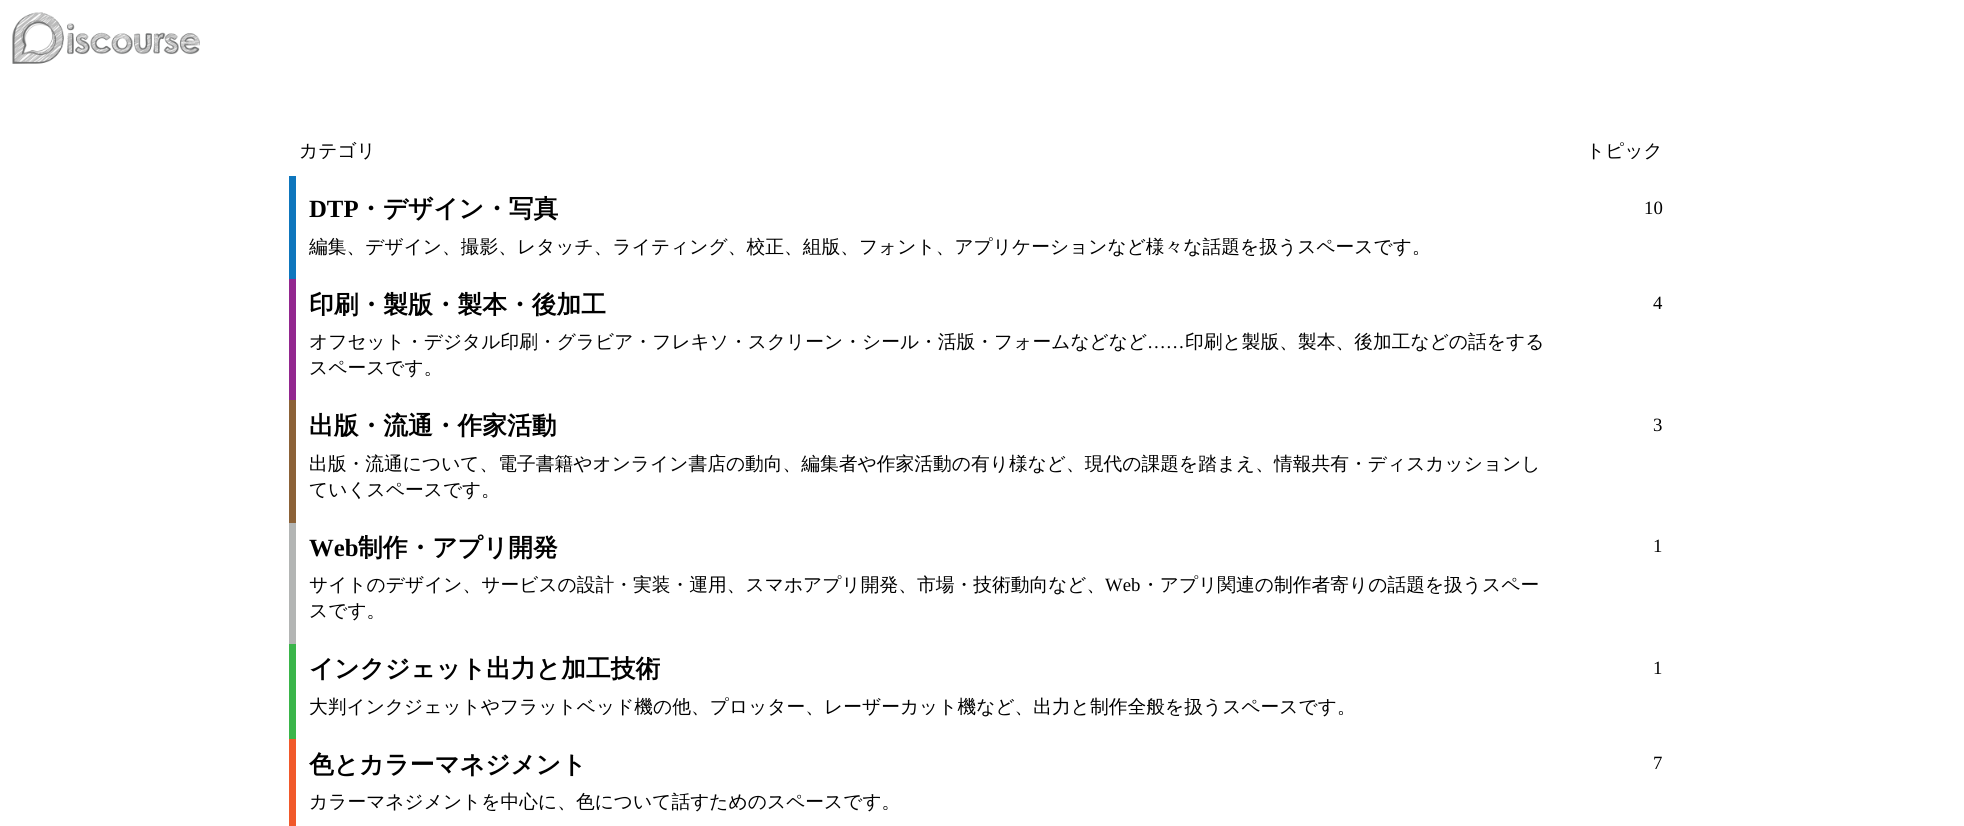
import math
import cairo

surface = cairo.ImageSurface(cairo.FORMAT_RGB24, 1964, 826)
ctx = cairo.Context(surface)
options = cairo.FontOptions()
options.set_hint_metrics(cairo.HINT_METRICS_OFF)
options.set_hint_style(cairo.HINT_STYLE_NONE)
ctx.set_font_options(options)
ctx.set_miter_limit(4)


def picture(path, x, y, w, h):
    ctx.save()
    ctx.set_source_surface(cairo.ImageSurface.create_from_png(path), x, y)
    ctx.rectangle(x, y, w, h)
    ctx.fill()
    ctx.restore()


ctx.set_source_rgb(1, 1, 1)
ctx.paint()
picture("img1.png", 12, 12, 188, 52)
ctx.select_font_face("WenQuanYi Zen Hei Medium")
ctx.set_font_size(18.75)
ctx.set_source_rgb(0, 0, 0)
ctx.move_to(299, 157)
ctx.show_text("カテゴリ")
ctx.move_to(1586, 157)
ctx.show_text("トピック")
ctx.set_source_rgb(0.945, 0.349, 0.165)
ctx.rectangle(289, 731, 7, 95)
ctx.fill()
ctx.set_source_rgb(0.227, 0.71, 0.29)
ctx.rectangle(289, 636, 7, 103)
ctx.fill()
ctx.set_source_rgb(0.702, 0.71, 0.706)
ctx.rectangle(289, 515, 7, 129)
ctx.fill()
ctx.set_source_rgb(0.549, 0.384, 0.22)
ctx.rectangle(289, 393, 7, 130)
ctx.fill()
ctx.set_source_rgb(0.573, 0.153, 0.561)
ctx.rectangle(289, 271, 7, 129)
ctx.fill()
ctx.set_source_rgb(0.055, 0.463, 0.741)
ctx.rectangle(289, 176, 7, 103)
ctx.fill()
ctx.select_font_face("Liberation Serif", cairo.FONT_SLANT_NORMAL, cairo.FONT_WEIGHT_BOLD)
ctx.set_font_size(24.75)
ctx.set_source_rgb(0, 0, 0)
ctx.move_to(309, 217)
ctx.show_text("DTP")
ctx.select_font_face("WenQuanYi Zen Hei", cairo.FONT_SLANT_NORMAL, cairo.FONT_WEIGHT_BOLD)
ctx.move_to(358, 217)
ctx.show_text("・デザイン・写真")
ctx.select_font_face("WenQuanYi Zen Hei Medium")
ctx.set_font_size(18.75)
ctx.move_to(309, 253)
ctx.show_text("編集、デザイン、撮影、レタッチ、ライティング、校正、組版、フォント、アプリケーションなど様々な話題を扱うスペースです。")
ctx.select_font_face("Liberation Serif")
ctx.move_to(1644, 214)
ctx.show_text("10")
ctx.select_font_face("WenQuanYi Zen Hei", cairo.FONT_SLANT_NORMAL, cairo.FONT_WEIGHT_BOLD)
ctx.set_font_size(24.75)
ctx.move_to(309, 313)
ctx.show_text("印刷・製版・製本・後加工")
ctx.select_font_face("WenQuanYi Zen Hei Medium")
ctx.set_font_size(18.75)
ctx.move_to(309, 348)
ctx.show_text("オフセット・デジタル印刷・グラビア・フレキソ・スクリーン・シール・活版・フォームなどなど")
ctx.select_font_face("Liberation Serif")
ctx.move_to(1147, 348)
ctx.show_text("……")
ctx.select_font_face("WenQuanYi Zen Hei Medium")
ctx.move_to(1185, 348)
ctx.show_text("印刷と製版、製本、後加工などの話をする")
ctx.move_to(309, 374)
ctx.show_text("スペースです。")
ctx.select_font_face("Liberation Serif")
ctx.move_to(1653, 309)
ctx.show_text("4")
ctx.select_font_face("WenQuanYi Zen Hei", cairo.FONT_SLANT_NORMAL, cairo.FONT_WEIGHT_BOLD)
ctx.set_font_size(24.75)
ctx.move_to(309, 434)
ctx.show_text("出版・流通・作家活動")
ctx.select_font_face("WenQuanYi Zen Hei Medium")
ctx.set_font_size(18.75)
ctx.move_to(309, 470)
ctx.show_text("出版・流通について、電子書籍やオンライン書店の動向、編集者や作家活動の有り様など、現代の課題を踏まえ、情報共有・ディスカッションし")
ctx.move_to(309, 496)
ctx.show_text("ていくスペースです。")
ctx.select_font_face("Liberation Serif")
ctx.move_to(1653, 431)
ctx.show_text("3")
ctx.select_font_face("Liberation Serif", cairo.FONT_SLANT_NORMAL, cairo.FONT_WEIGHT_BOLD)
ctx.set_font_size(24.75)
ctx.move_to(309, 556)
ctx.show_text("Web")
ctx.select_font_face("WenQuanYi Zen Hei", cairo.FONT_SLANT_NORMAL, cairo.FONT_WEIGHT_BOLD)
ctx.move_to(358, 556)
ctx.show_text("制作・アプリ開発")
ctx.select_font_face("WenQuanYi Zen Hei Medium")
ctx.set_font_size(18.75)
ctx.move_to(309, 591)
ctx.show_text("サイトのデザイン、サービスの設計・実装・運用、スマホアプリ開発、市場・技術動向など、")
ctx.select_font_face("Liberation Serif")
ctx.move_to(1105, 591)
ctx.show_text("Web")
ctx.select_font_face("WenQuanYi Zen Hei Medium")
ctx.move_to(1141, 591)
ctx.show_text("・アプリ関連の制作者寄りの話題を扱うスペー")
ctx.move_to(309, 617)
ctx.show_text("スです。")
ctx.select_font_face("Liberation Serif")
ctx.move_to(1653, 552)
ctx.show_text("1")
ctx.select_font_face("WenQuanYi Zen Hei", cairo.FONT_SLANT_NORMAL, cairo.FONT_WEIGHT_BOLD)
ctx.set_font_size(24.75)
ctx.move_to(309, 677)
ctx.show_text("インクジェット出力と加工技術")
ctx.select_font_face("WenQuanYi Zen Hei Medium")
ctx.set_font_size(18.75)
ctx.move_to(309, 713)
ctx.show_text("大判インクジェットやフラットベッド機の他、プロッター、レーザーカット機など、出力と制作全般を扱うスペースです。")
ctx.select_font_face("Liberation Serif")
ctx.move_to(1653, 674)
ctx.show_text("1")
ctx.select_font_face("WenQuanYi Zen Hei", cairo.FONT_SLANT_NORMAL, cairo.FONT_WEIGHT_BOLD)
ctx.set_font_size(24.75)
ctx.move_to(309, 773)
ctx.show_text("色とカラーマネジメント")
ctx.select_font_face("WenQuanYi Zen Hei Medium")
ctx.set_font_size(18.75)
ctx.move_to(309, 808)
ctx.show_text("カラーマネジメントを中心に、色について話すためのスペースです。")
ctx.select_font_face("Liberation Serif")
ctx.move_to(1653, 769)
ctx.show_text("7")
surface.write_to_png("page.png")
